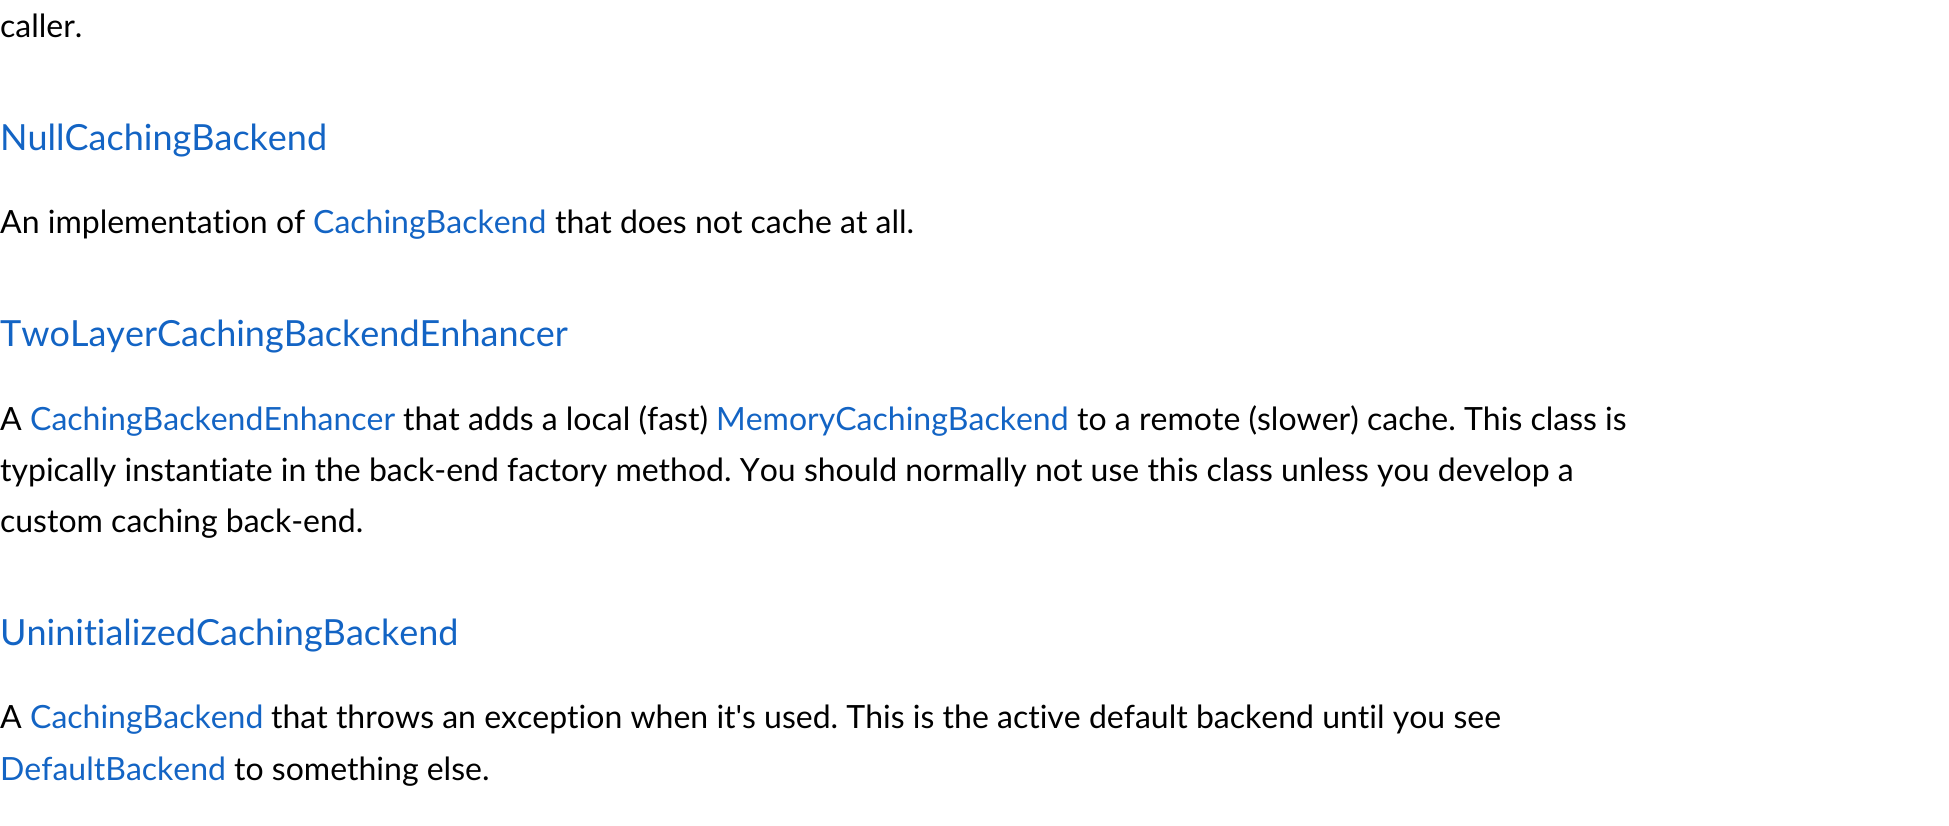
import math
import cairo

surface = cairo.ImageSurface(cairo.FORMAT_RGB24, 1949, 826)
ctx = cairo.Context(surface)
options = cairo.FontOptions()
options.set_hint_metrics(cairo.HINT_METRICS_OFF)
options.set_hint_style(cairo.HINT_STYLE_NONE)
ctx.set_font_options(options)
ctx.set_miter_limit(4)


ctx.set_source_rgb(1, 1, 1)
ctx.paint()
ctx.select_font_face("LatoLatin")
ctx.set_font_size(32)
ctx.set_source_rgb(0, 0, 0)
ctx.move_to(0, 37)
ctx.show_text("caller.")
ctx.set_font_size(36)
ctx.set_source_rgb(0.075, 0.392, 0.769)
ctx.move_to(0, 150)
ctx.show_text("NullCachingBackend")
ctx.set_font_size(32)
ctx.set_source_rgb(0, 0, 0)
ctx.move_to(0, 233)
ctx.show_text("An implementation of")
ctx.set_source_rgb(0.075, 0.392, 0.769)
ctx.move_to(313, 233)
ctx.show_text("CachingBackend")
ctx.set_source_rgb(0, 0, 0)
ctx.move_to(555, 233)
ctx.show_text("that does not cache at all.")
ctx.set_font_size(36)
ctx.set_source_rgb(0.075, 0.392, 0.769)
ctx.move_to(0, 346)
ctx.show_text("TwoLayerCachingBackendEnhancer")
ctx.set_font_size(32)
ctx.set_source_rgb(0, 0, 0)
ctx.move_to(0, 430)
ctx.show_text("A")
ctx.set_source_rgb(0.075, 0.392, 0.769)
ctx.move_to(30, 430)
ctx.show_text("CachingBackendEnhancer")
ctx.set_source_rgb(0, 0, 0)
ctx.move_to(403, 430)
ctx.show_text("that adds a local (fast)")
ctx.set_source_rgb(0.075, 0.392, 0.769)
ctx.move_to(716, 430)
ctx.show_text("MemoryCachingBackend")
ctx.set_source_rgb(0, 0, 0)
ctx.move_to(1077, 430)
ctx.show_text("to a remote (slower) cache. This class is")
ctx.move_to(0, 481)
ctx.show_text("typically instantiate in the back-end factory method. You should normally not use this class unless you develop a")
ctx.move_to(0, 532)
ctx.show_text("custom caching back-end.")
ctx.set_font_size(36)
ctx.set_source_rgb(0.075, 0.392, 0.769)
ctx.move_to(0, 645)
ctx.show_text("UninitializedCachingBackend")
ctx.set_font_size(32)
ctx.set_source_rgb(0, 0, 0)
ctx.move_to(0, 728)
ctx.show_text("A")
ctx.set_source_rgb(0.075, 0.392, 0.769)
ctx.move_to(30, 728)
ctx.show_text("CachingBackend")
ctx.set_source_rgb(0, 0, 0)
ctx.move_to(271, 728)
ctx.show_text("that throws an exception when it's used. This is the active default backend until you see")
ctx.set_source_rgb(0.075, 0.392, 0.769)
ctx.move_to(0, 780)
ctx.show_text("DefaultBackend")
ctx.set_source_rgb(0, 0, 0)
ctx.move_to(234, 780)
ctx.show_text("to something else.")
surface.write_to_png("page.png")
